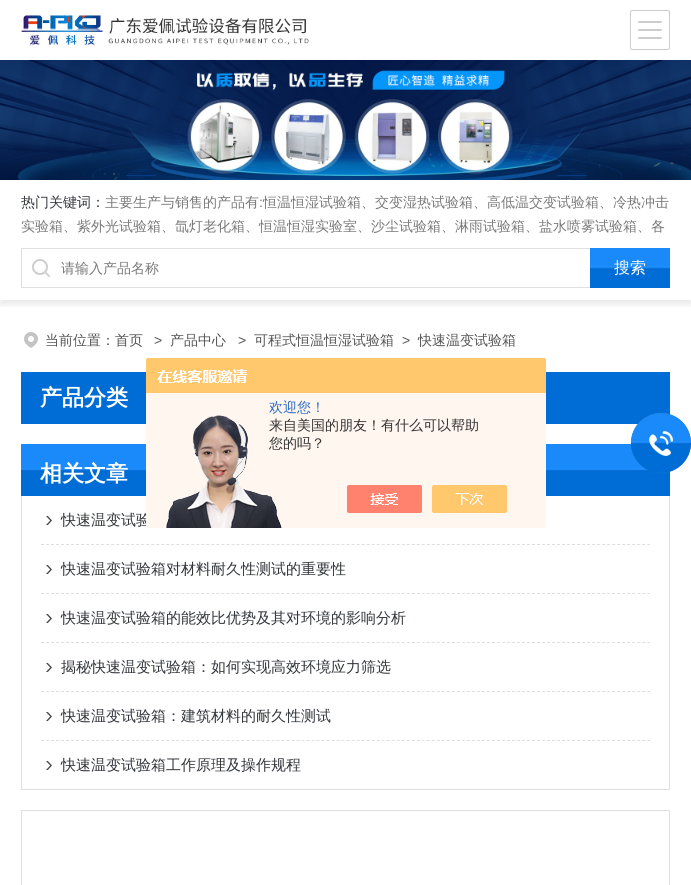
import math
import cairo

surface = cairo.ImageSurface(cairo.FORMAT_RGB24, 691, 885)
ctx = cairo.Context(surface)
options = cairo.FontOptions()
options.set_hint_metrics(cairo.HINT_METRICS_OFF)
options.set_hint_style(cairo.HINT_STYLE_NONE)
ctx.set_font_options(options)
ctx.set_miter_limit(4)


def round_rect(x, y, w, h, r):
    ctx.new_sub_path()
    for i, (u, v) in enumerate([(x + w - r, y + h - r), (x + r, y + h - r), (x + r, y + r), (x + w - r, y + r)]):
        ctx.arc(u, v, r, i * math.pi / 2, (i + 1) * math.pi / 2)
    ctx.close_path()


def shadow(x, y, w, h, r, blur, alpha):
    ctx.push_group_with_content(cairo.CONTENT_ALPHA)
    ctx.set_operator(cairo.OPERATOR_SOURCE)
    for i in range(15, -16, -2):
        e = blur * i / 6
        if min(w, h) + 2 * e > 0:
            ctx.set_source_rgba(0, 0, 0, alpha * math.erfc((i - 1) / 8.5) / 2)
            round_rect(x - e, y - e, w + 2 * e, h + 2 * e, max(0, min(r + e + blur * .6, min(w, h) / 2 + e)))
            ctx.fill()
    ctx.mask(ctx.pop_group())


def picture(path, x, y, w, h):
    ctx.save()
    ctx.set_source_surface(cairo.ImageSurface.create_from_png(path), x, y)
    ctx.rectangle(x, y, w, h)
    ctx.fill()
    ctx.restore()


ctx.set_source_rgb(1, 1, 1)
ctx.paint()
picture("img1.png", 21, 15, 288, 31)
round_rect(630.5, 10.5, 39, 39, 1.5)
ctx.set_source_rgb(0.8, 0.8, 0.8)
ctx.set_line_width(1)
ctx.stroke()
round_rect(638, 21, 24, 2, 1)
ctx.fill()
round_rect(638, 29, 24, 2, 1)
ctx.fill()
round_rect(638, 37, 24, 2, 1)
ctx.fill()
picture("img2.png", 0, 60, 691, 120)
ctx.save()
ctx.rectangle(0, 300, 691, 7)
ctx.clip()
ctx.set_source_rgb(0, 0, 0)
shadow(0, 184, 691, 120, 0, 4, 0.1)
ctx.restore()
ctx.select_font_face("WenQuanYi Zen Hei Medium")
ctx.set_font_size(14)
ctx.set_source_rgb(0.196, 0.208, 0.227)
ctx.move_to(21, 207)
ctx.show_text("热门关键词：")
ctx.set_source_rgb(0.475, 0.475, 0.475)
ctx.move_to(105, 207)
ctx.show_text("主要生产与销售的产品有")
ctx.select_font_face("Liberation Sans")
ctx.move_to(259, 207)
ctx.show_text(":")
ctx.select_font_face("WenQuanYi Zen Hei Medium")
ctx.move_to(263, 207)
ctx.show_text("恒温恒湿试验箱、交变湿热试验箱、高低温交变试验箱、冷热冲击")
ctx.move_to(21, 231)
ctx.show_text("实验箱、紫外光试验箱、氙灯老化箱、恒温恒湿实验室、沙尘试验箱、淋雨试验箱、盐水喷雾试验箱、各")
picture("img3.png", 32, 259, 18, 18)
ctx.set_source_rgb(0.875, 0.875, 0.875)
ctx.rectangle(21, 248, 569, 1)
ctx.fill()
ctx.rectangle(21, 287, 569, 1)
ctx.fill()
ctx.rectangle(21, 248, 1, 40)
ctx.fill()
ctx.set_source_rgb(0.475, 0.475, 0.475)
ctx.move_to(61, 273)
ctx.show_text("请输入产品名称")
picture("img4.png", 590, 248, 80, 40)
ctx.set_font_size(16)
ctx.set_source_rgb(1, 1, 1)
ctx.move_to(614, 273)
ctx.show_text("搜索")
picture("img5.png", 24, 332, 14, 16)
ctx.set_font_size(14)
ctx.set_source_rgb(0.329, 0.329, 0.329)
ctx.move_to(45, 345)
ctx.show_text("当前位置：首页")
ctx.select_font_face("Liberation Sans")
ctx.move_to(154, 345)
ctx.show_text(">")
ctx.select_font_face("WenQuanYi Zen Hei Medium")
ctx.move_to(170, 345)
ctx.show_text("产品中心")
ctx.select_font_face("Liberation Sans")
ctx.move_to(238, 345)
ctx.show_text(">")
ctx.select_font_face("WenQuanYi Zen Hei Medium")
ctx.move_to(254, 345)
ctx.show_text("可程式恒温恒湿试验箱")
ctx.select_font_face("Liberation Sans")
ctx.move_to(402, 345)
ctx.show_text(">")
ctx.select_font_face("WenQuanYi Zen Hei Medium")
ctx.move_to(418, 345)
ctx.show_text("快速温变试验箱")
ctx.set_source_rgb(0, 0.427, 0.839)
ctx.rectangle(21, 372, 649, 52)
ctx.fill()
ctx.select_font_face("WenQuanYi Zen Hei", cairo.FONT_SLANT_NORMAL, cairo.FONT_WEIGHT_BOLD)
ctx.set_font_size(22)
ctx.set_source_rgb(1, 1, 1)
ctx.move_to(40, 405)
ctx.show_text("产品分类")
picture("img6.png", 21, 444, 649, 52)
ctx.move_to(40, 481)
ctx.show_text("相关文章")
ctx.set_source_rgb(0.875, 0.875, 0.875)
ctx.rectangle(669, 496, 1, 294)
ctx.fill()
ctx.rectangle(21, 789, 649, 1)
ctx.fill()
ctx.rectangle(21, 496, 1, 294)
ctx.fill()
ctx.new_path()
ctx.move_to(41, 544.5)
ctx.line_to(650, 544.5)
ctx.set_dash([3, 2.01])
ctx.stroke()
picture("img7.png", 46, 516, 6, 9)
ctx.select_font_face("WenQuanYi Zen Hei Medium")
ctx.set_font_size(15)
ctx.set_source_rgb(0.196, 0.208, 0.227)
ctx.move_to(61, 525)
ctx.show_text("快速温变试验")
ctx.new_path()
ctx.move_to(41, 593.5)
ctx.line_to(650, 593.5)
ctx.set_source_rgb(0.875, 0.875, 0.875)
ctx.stroke()
picture("img7.png", 46, 565, 6, 9)
ctx.set_source_rgb(0.196, 0.208, 0.227)
ctx.move_to(61, 574)
ctx.show_text("快速温变试验箱对材料耐久性测试的重要性")
ctx.new_path()
ctx.move_to(41, 642.5)
ctx.line_to(650, 642.5)
ctx.set_source_rgb(0.875, 0.875, 0.875)
ctx.stroke()
picture("img7.png", 46, 614, 6, 9)
ctx.set_source_rgb(0.196, 0.208, 0.227)
ctx.move_to(61, 623)
ctx.show_text("快速温变试验箱的能效比优势及其对环境的影响分析")
ctx.new_path()
ctx.move_to(41, 691.5)
ctx.line_to(650, 691.5)
ctx.set_source_rgb(0.875, 0.875, 0.875)
ctx.stroke()
picture("img7.png", 46, 663, 6, 9)
ctx.set_source_rgb(0.196, 0.208, 0.227)
ctx.move_to(61, 672)
ctx.show_text("揭秘快速温变试验箱：如何实现高效环境应力筛选")
ctx.new_path()
ctx.move_to(41, 740.5)
ctx.line_to(650, 740.5)
ctx.set_source_rgb(0.875, 0.875, 0.875)
ctx.stroke()
picture("img7.png", 46, 712, 6, 9)
ctx.set_source_rgb(0.196, 0.208, 0.227)
ctx.move_to(61, 721)
ctx.show_text("快速温变试验箱：建筑材料的耐久性测试")
picture("img7.png", 46, 761, 6, 9)
ctx.move_to(61, 770)
ctx.show_text("快速温变试验箱工作原理及操作规程")
ctx.rectangle(21.5, 810.5, 648, 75)
ctx.set_source_rgb(0.875, 0.875, 0.875)
ctx.set_dash([])
ctx.stroke()
picture("img8.png", 146, 358, 400, 170)
ctx.set_font_size(14)
ctx.set_source_rgb(0.18, 0.431, 0.776)
ctx.move_to(269, 412)
ctx.show_text("欢迎您！")
ctx.set_source_rgb(0.2, 0.2, 0.2)
ctx.move_to(269, 430)
ctx.show_text("来自美国的朋友！有什么可以帮助")
ctx.move_to(269, 448)
ctx.show_text("您的吗？")
ctx.set_source_rgb(0.114, 0.471, 0.749)
ctx.new_path()
ctx.arc(661, 443, 30, 0, 2 * math.pi)
ctx.fill()
picture("img9.png", 631, 413, 60, 60)
picture("img10.png", 649, 431, 24, 25)
surface.write_to_png("page.png")
